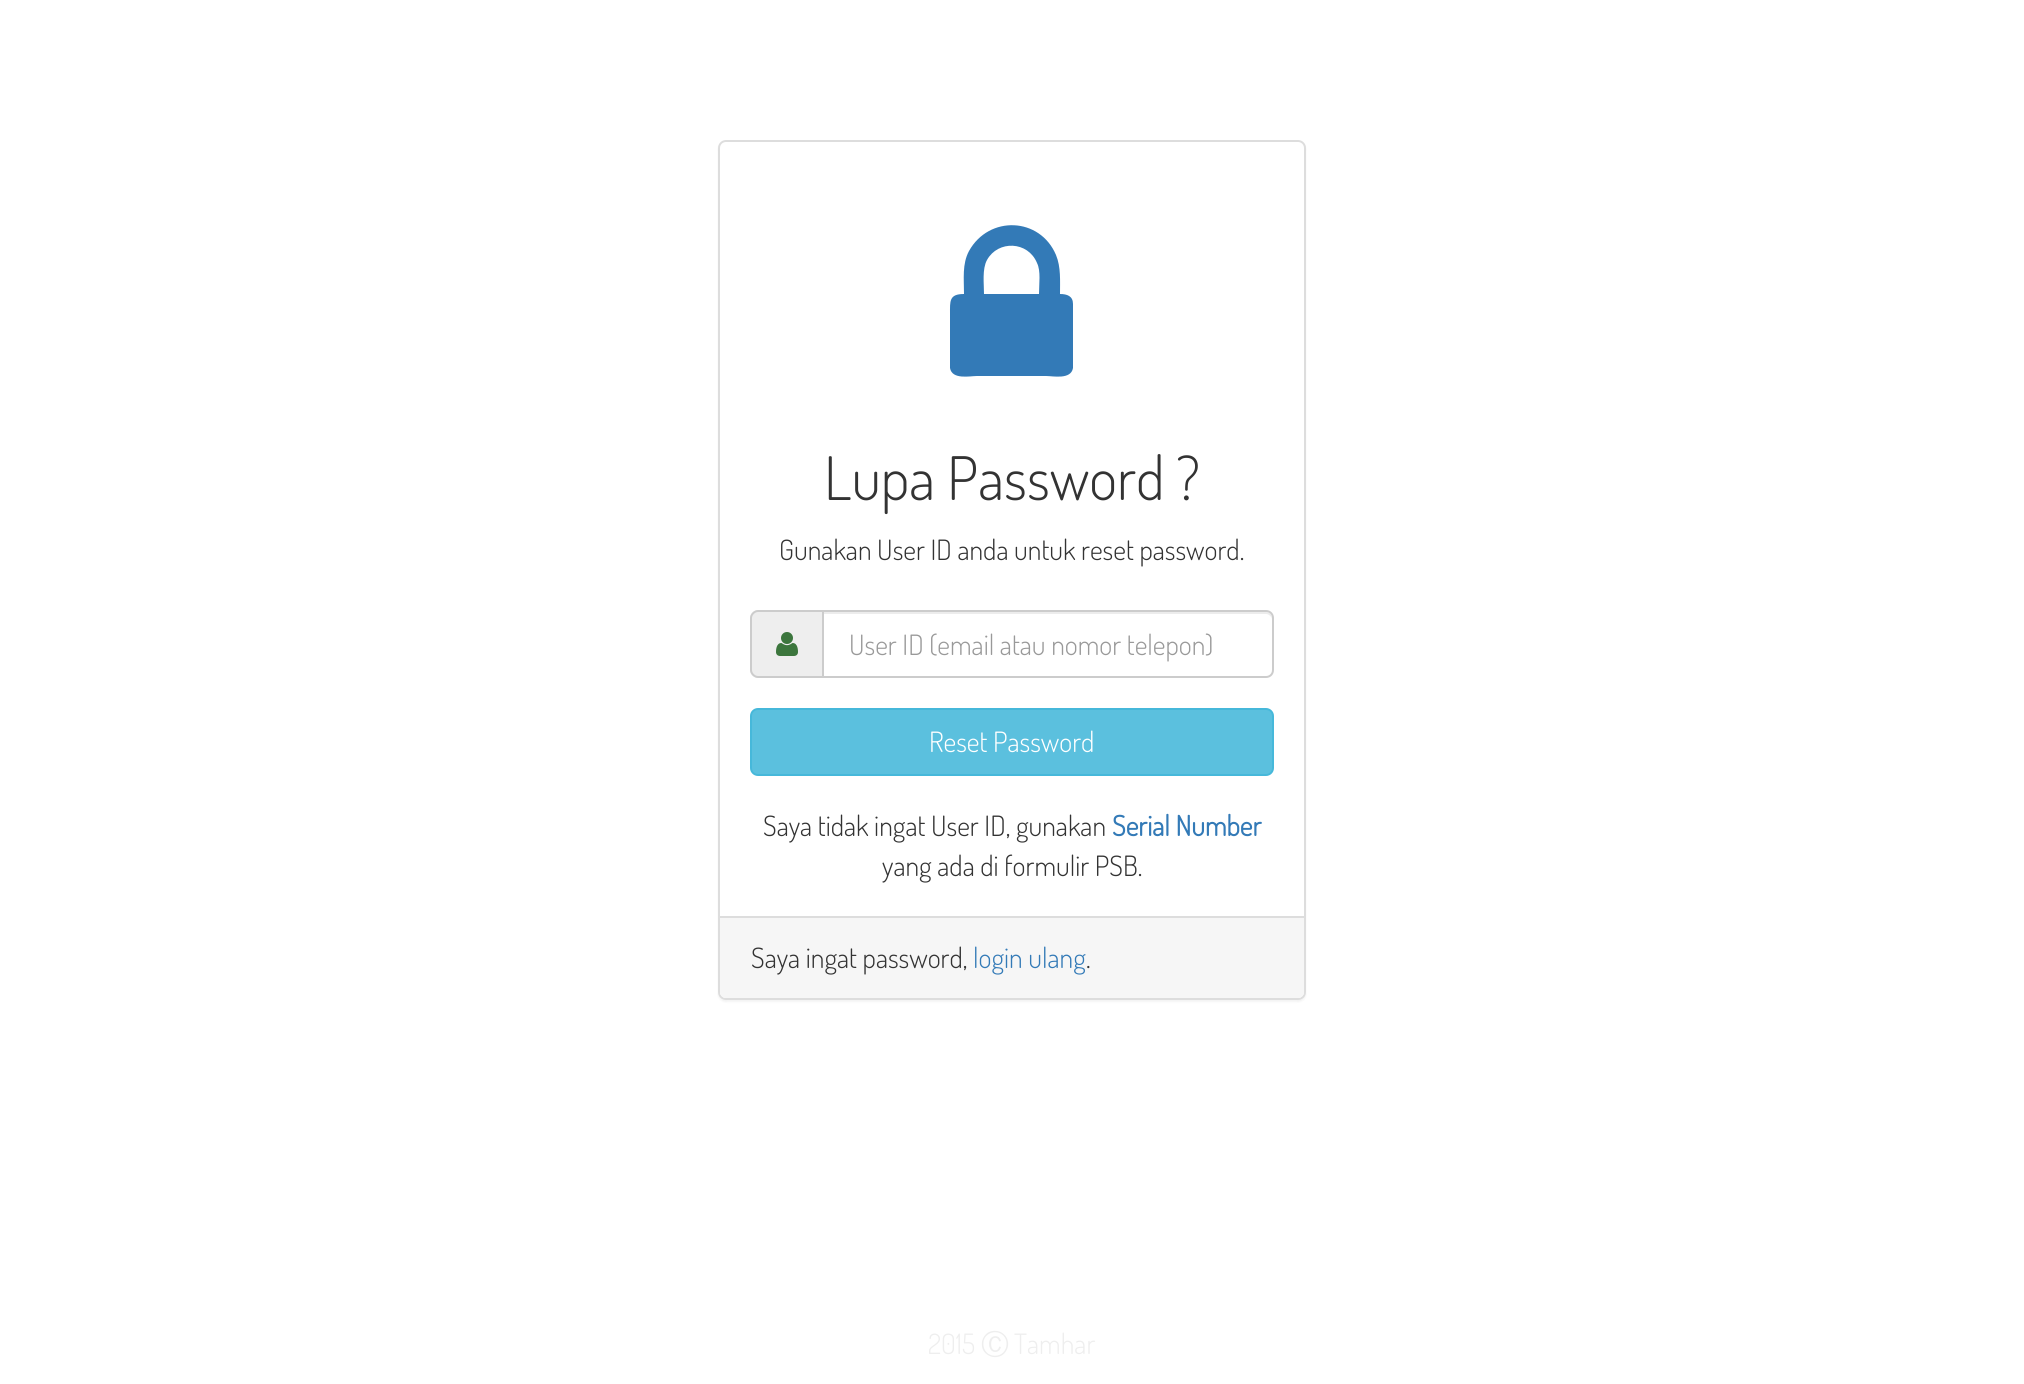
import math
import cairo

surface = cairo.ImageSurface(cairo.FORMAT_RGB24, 2024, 1384)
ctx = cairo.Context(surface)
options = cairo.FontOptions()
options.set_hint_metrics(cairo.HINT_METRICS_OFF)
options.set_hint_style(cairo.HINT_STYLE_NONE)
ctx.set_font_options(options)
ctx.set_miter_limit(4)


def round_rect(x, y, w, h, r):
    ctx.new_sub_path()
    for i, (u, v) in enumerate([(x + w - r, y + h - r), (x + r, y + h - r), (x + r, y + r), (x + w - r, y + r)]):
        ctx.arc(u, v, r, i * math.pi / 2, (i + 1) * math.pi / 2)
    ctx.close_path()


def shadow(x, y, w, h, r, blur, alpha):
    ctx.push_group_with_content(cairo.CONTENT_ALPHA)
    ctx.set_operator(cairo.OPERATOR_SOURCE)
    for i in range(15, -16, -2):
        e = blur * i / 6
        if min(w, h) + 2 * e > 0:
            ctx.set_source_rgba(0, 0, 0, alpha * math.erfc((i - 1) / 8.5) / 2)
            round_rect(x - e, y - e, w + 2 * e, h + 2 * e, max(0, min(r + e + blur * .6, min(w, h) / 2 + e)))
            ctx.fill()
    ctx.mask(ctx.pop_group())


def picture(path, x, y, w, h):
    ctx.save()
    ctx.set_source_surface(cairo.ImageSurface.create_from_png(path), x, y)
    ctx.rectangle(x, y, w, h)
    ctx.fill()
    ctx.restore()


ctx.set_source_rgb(1, 1, 1)
ctx.paint()
ctx.set_source_rgb(0, 0, 0)
shadow(718, 142, 588, 860, 8, 1, 0.05)
ctx.set_source_rgb(1, 1, 1)
round_rect(719, 141, 586, 858, 7)
ctx.fill_preserve()
ctx.set_source_rgb(0.867, 0.867, 0.867)
ctx.stroke()
ctx.set_source_rgb(0.2, 0.478, 0.718)
ctx.new_path()
ctx.move_to(984, 294)
ctx.line_to(1039, 294)
ctx.curve_to(1039, 284, 1041, 271, 1037, 263)
ctx.curve_to(1028, 241, 998, 240, 987, 260)
ctx.curve_to(982, 269, 984, 284, 984, 294)
ctx.close_path()
ctx.move_to(1073, 304)
ctx.line_to(1073, 368)
ctx.curve_to(1071, 380, 1053, 376, 1046, 376)
ctx.line_to(977, 376)
ctx.curve_to(970, 376, 952, 380, 950, 368)
ctx.line_to(950, 314)
ctx.curve_to(950, 301, 949, 294, 964, 294)
ctx.curve_to(964, 279, 962, 264, 969, 251)
ctx.curve_to(989, 215, 1040, 217, 1056, 255)
ctx.curve_to(1061, 267, 1060, 281, 1060, 294)
ctx.curve_to(1067, 294, 1073, 296, 1073, 304)
ctx.close_path()
ctx.fill()
ctx.select_font_face("Dosis Light")
ctx.set_font_size(60)
ctx.set_source_rgb(0.2, 0.2, 0.2)
ctx.move_to(824, 500)
ctx.show_text("Lupa Password ?")
ctx.set_font_size(28)
ctx.move_to(779, 560)
ctx.show_text("Gunakan User ID anda untuk reset password.")
ctx.set_source_rgb(0.933, 0.933, 0.933)
ctx.new_path()
ctx.move_to(758, 610)
ctx.line_to(822, 610)
ctx.line_to(822, 678)
ctx.line_to(758, 678)
ctx.curve_to(753.5, 678, 750, 674.5, 750, 670)
ctx.line_to(750, 618)
ctx.curve_to(750, 613.5, 753.5, 610, 758, 610)
ctx.close_path()
ctx.fill()
ctx.set_source_rgb(0.8, 0.8, 0.8)
ctx.set_fill_rule(cairo.FILL_RULE_EVEN_ODD)
ctx.new_path()
ctx.move_to(758, 610)
ctx.line_to(822, 610)
ctx.line_to(822, 678)
ctx.line_to(758, 678)
ctx.curve_to(754, 678, 750, 674, 750, 670)
ctx.line_to(750, 618)
ctx.curve_to(750, 614, 754, 610, 758, 610)
ctx.close_path()
ctx.move_to(758, 612)
ctx.line_to(822, 612)
ctx.line_to(822, 676)
ctx.line_to(758, 676)
ctx.curve_to(755, 676, 752, 673, 752, 670)
ctx.line_to(752, 618)
ctx.curve_to(752, 615, 755, 612, 758, 612)
ctx.close_path()
ctx.fill()
picture("img1.png", 776, 632, 22, 24)
ctx.set_source_rgb(0.925, 0.925, 0.925)
ctx.set_fill_rule(cairo.FILL_RULE_WINDING)
ctx.new_path()
ctx.move_to(824, 614)
ctx.line_to(1266, 614)
ctx.curve_to(1269, 614, 1272, 617, 1272, 620)
ctx.curve_to(1272, 616, 1271, 612, 1266, 612)
ctx.line_to(824, 612)
ctx.close_path()
ctx.fill()
ctx.new_path()
ctx.move_to(823, 611)
ctx.line_to(1266, 611)
ctx.curve_to(1270, 611, 1273, 614, 1273, 618)
ctx.line_to(1273, 670)
ctx.curve_to(1273, 674, 1270, 677, 1266, 677)
ctx.line_to(823, 677)
ctx.close_path()
ctx.set_source_rgb(0.8, 0.8, 0.8)
ctx.stroke()
ctx.set_source_rgb(0.6, 0.6, 0.6)
ctx.move_to(849, 655)
ctx.show_text("User ID (email atau nomor telepon)")
ctx.set_source_rgb(0.357, 0.753, 0.871)
round_rect(751, 709, 522, 66, 7)
ctx.fill_preserve()
ctx.set_source_rgb(0.275, 0.722, 0.855)
ctx.stroke()
ctx.set_source_rgb(1, 1, 1)
ctx.move_to(929, 752)
ctx.show_text("Reset Password")
ctx.set_source_rgb(0.2, 0.2, 0.2)
ctx.move_to(763, 836)
ctx.show_text("Saya tidak ingat User ID, gunakan")
ctx.select_font_face("Dosis", cairo.FONT_SLANT_NORMAL, cairo.FONT_WEIGHT_BOLD)
ctx.set_source_rgb(0.2, 0.478, 0.718)
ctx.move_to(1112, 836)
ctx.show_text("Serial Number")
ctx.select_font_face("Dosis Light")
ctx.set_source_rgb(0.2, 0.2, 0.2)
ctx.move_to(882, 876)
ctx.show_text("yang ada di formulir PSB.")
ctx.set_source_rgb(0.961, 0.961, 0.961)
ctx.new_path()
ctx.move_to(720, 916)
ctx.line_to(1304, 916)
ctx.line_to(1304, 992)
ctx.curve_to(1304, 995.5, 1301.5, 998, 1298, 998)
ctx.line_to(726, 998)
ctx.curve_to(722.5, 998, 720, 995.5, 720, 992)
ctx.close_path()
ctx.fill()
ctx.set_source_rgb(0.867, 0.867, 0.867)
ctx.rectangle(720, 916, 584, 2)
ctx.fill()
ctx.set_source_rgb(0.2, 0.2, 0.2)
ctx.move_to(751, 968)
ctx.show_text("Saya ingat password,")
ctx.set_source_rgb(0.2, 0.478, 0.718)
ctx.move_to(973, 968)
ctx.show_text("login ulang")
ctx.set_source_rgb(0.2, 0.2, 0.2)
ctx.move_to(1086, 968)
ctx.show_text(".")
ctx.set_source_rgb(0.933, 0.933, 0.933)
ctx.move_to(928, 1354)
ctx.show_text("2015")
ctx.select_font_face("WenQuanYi Zen Hei Medium")
ctx.move_to(981, 1354)
ctx.show_text("Ⓒ")
ctx.select_font_face("Dosis Light")
ctx.move_to(1014, 1354)
ctx.show_text("Tamhar")
surface.write_to_png("page.png")
